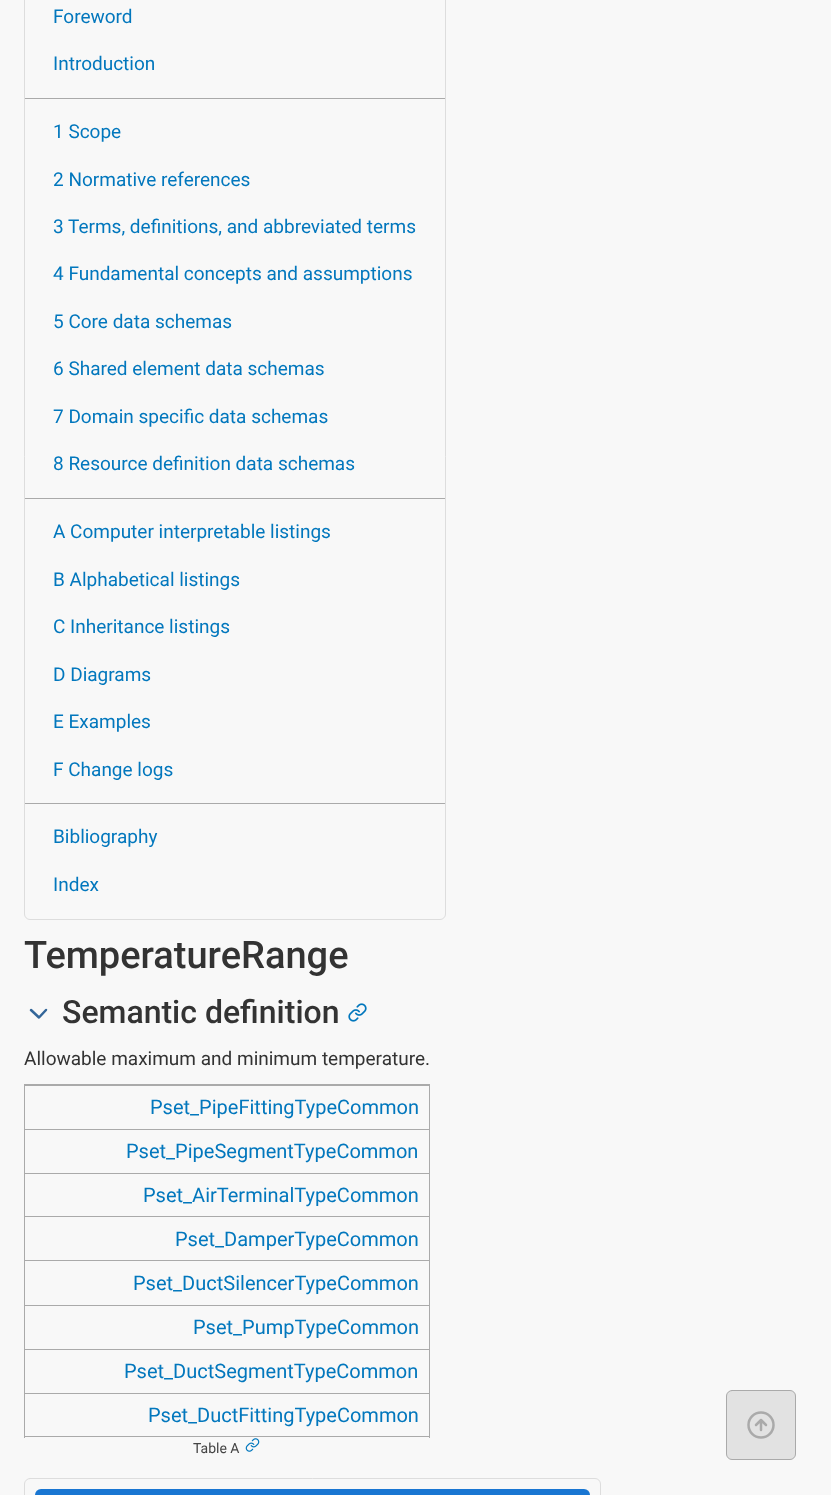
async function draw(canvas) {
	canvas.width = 831;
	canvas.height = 1495;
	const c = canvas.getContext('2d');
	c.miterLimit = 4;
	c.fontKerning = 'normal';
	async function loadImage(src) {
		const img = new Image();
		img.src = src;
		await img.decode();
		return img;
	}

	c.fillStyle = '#f8f8f8';
	c.fillRect(0, 0, 831, 1495);
	c.beginPath();
	c.roundRect(24.5, -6.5, 421, 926, 5.5);
	c.strokeStyle = '#ddd';
	c.stroke();
	c.fillStyle = '#aaa';
	c.fillRect(25, 98, 420, 1);
	c.font = '19px Roboto';
	c.fillStyle = '#0277bd';
	c.fillText('Foreword', 53, 23);
	c.fillText('Introduction', 53, 70);
	c.fillStyle = '#aaa';
	c.fillRect(25, 498, 420, 1);
	c.fillStyle = '#0277bd';
	for (const [text, x, y] of [
		['1 Scope', 53, 138],
		['2 Normative references', 53, 186],
		['3 Terms, definitions, and abbreviated terms', 53, 233],
		['4 Fundamental concepts and assumptions', 53, 280],
		['5 Core data schemas', 53, 328],
		['6 Shared element data schemas', 53, 375],
		['7 Domain specific data schemas', 53, 423],
		['8 Resource definition data schemas', 53, 470],
	]) {
		c.fillText(text, x, y);
	}
	c.fillStyle = '#aaa';
	c.fillRect(25, 803, 420, 1);
	c.fillStyle = '#0277bd';
	for (const [text, x, y] of [
		['A Computer interpretable listings', 53, 538],
		['B Alphabetical listings', 53, 586],
		['C Inheritance listings', 53, 633],
		['D Diagrams', 53, 681],
		['E Examples', 53, 728],
		['F Change logs', 53, 776],
		['Bibliography', 53, 843],
		['Index', 53, 891],
	]) {
		c.fillText(text, x, y);
	}
	c.font = '500 38px Roboto';
	c.fillStyle = '#333';
	c.fillText('TemperatureRange', 24, 968);
	c.beginPath();
	c.moveTo(31, 1010);
	c.lineTo(39, 1017.5);
	c.lineTo(46, 1010);
	c.strokeStyle = '#369';
	c.lineWidth = 2.5;
	c.lineCap = 'round';
	c.lineJoin = 'round';
	c.stroke();
	c.font = '500 32px Roboto';
	c.fillText('Semantic definition', 62, 1023);
	c.drawImage(await loadImage('img1.png'), 348, 1003, 19, 19);
	c.font = '19px Roboto';
	c.fillText('Allowable maximum and minimum temperature.', 24, 1065);
	for (const [x, y, w, h, color] of [
		[24, 1084, 406, 1, '#aaa'],
		[429, 1084, 1, 354, '#aaa'],
		[24, 1436, 406, 1, '#aaa'],
		[24, 1084, 1, 354, '#aaa'],
		[24, 1085, 406, 1, '#aaa'],
	]) {
		c.fillStyle = color;
		c.fillRect(x, y, w, h);
	}
	c.font = '20px Roboto';
	c.fillStyle = '#0277bd';
	c.fillText('Pset_PipeFittingTypeCommon', 150, 1114);
	c.fillStyle = '#aaa';
	c.fillRect(24, 1129, 406, 1);
	c.fillStyle = '#0277bd';
	c.fillText('Pset_PipeSegmentTypeCommon', 126, 1158);
	c.fillStyle = '#aaa';
	c.fillRect(24, 1173, 406, 1);
	c.fillStyle = '#0277bd';
	c.fillText('Pset_AirTerminalTypeCommon', 143, 1202);
	c.fillStyle = '#aaa';
	c.fillRect(24, 1216, 406, 1);
	c.fillStyle = '#0277bd';
	c.fillText('Pset_DamperTypeCommon', 175, 1246);
	c.fillStyle = '#aaa';
	c.fillRect(24, 1260, 406, 1);
	c.fillStyle = '#0277bd';
	c.fillText('Pset_DuctSilencerTypeCommon', 133, 1290);
	c.fillStyle = '#aaa';
	c.fillRect(24, 1305, 406, 1);
	c.fillStyle = '#0277bd';
	c.fillText('Pset_PumpTypeCommon', 193, 1334);
	c.fillStyle = '#aaa';
	c.fillRect(24, 1349, 406, 1);
	c.fillStyle = '#0277bd';
	c.fillText('Pset_DuctSegmentTypeCommon', 124, 1378);
	c.fillStyle = '#aaa';
	c.fillRect(24, 1393, 406, 1);
	c.fillStyle = '#0277bd';
	c.fillText('Pset_DuctFittingTypeCommon', 148, 1422);
	c.font = '14px Roboto';
	c.fillStyle = '#444';
	c.fillText('Table A', 193, 1453);
	c.drawImage(await loadImage('img2.png'), 245, 1438, 15, 14);
	c.beginPath();
	c.roundRect(24.5, 1478.5, 576, 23, 5.5);
	c.strokeStyle = '#ddd';
	c.lineWidth = 1;
	c.lineJoin = 'miter';
	c.stroke();
	c.fillStyle = '#1976d2';
	c.beginPath();
	c.roundRect(35, 1489, 555, 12, 6);
	c.fill();
	c.fillStyle = '#e2e2e2';
	c.beginPath();
	c.roundRect(726.5, 1390.5, 69, 69, 5.5);
	c.fill();
	c.strokeStyle = '#aaa';
	c.stroke();
	c.beginPath();
	c.arc(761, 1425, 12.5, 0, 2 * Math.PI);
	c.lineWidth = 2.5;
	c.stroke();
	c.beginPath();
	c.moveTo(766, 1425);
	c.lineTo(761, 1420);
	c.lineTo(756, 1425);
	c.moveTo(761, 1430);
	c.lineTo(761, 1420);
	c.lineJoin = 'round';
	c.stroke();
}

draw(document.querySelector('canvas'));
